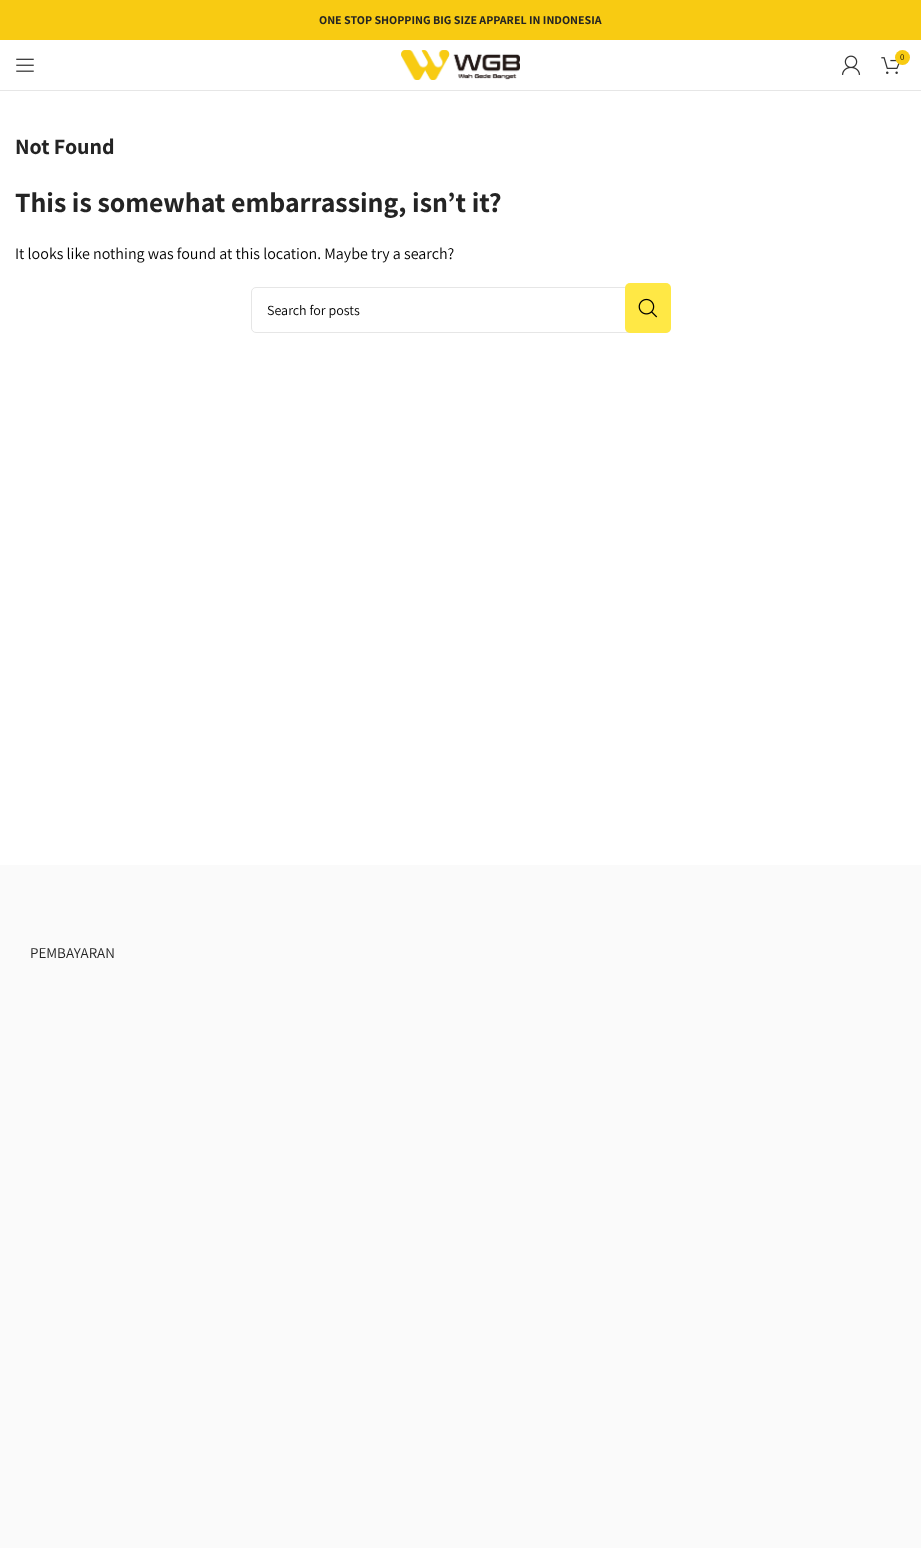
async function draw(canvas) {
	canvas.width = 921;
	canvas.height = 1548;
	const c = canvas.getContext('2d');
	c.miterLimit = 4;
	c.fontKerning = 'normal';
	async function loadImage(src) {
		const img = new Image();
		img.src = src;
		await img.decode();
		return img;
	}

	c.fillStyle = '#fff';
	c.fillRect(0, 0, 921, 1548);
	c.fillStyle = '#f8cb12';
	c.fillRect(0, 0, 921, 40);
	c.font = 'bold 12px Assistant';
	c.fillStyle = '#242424';
	c.fillText('ONE STOP SHOPPING BIG SIZE APPAREL IN INDONESIA', 319, 24);
	c.fillStyle = '#e6e6e6';
	c.fillRect(0, 90, 921, 1);
	c.drawImage(await loadImage('img1.png'), 16, 58, 18, 14);
	c.drawImage(await loadImage('img2.png'), 401, 50, 119, 30);
	c.drawImage(await loadImage('img3.png'), 841, 55, 20, 20);
	c.drawImage(await loadImage('img4.png'), 881, 57, 19, 17);
	c.fillStyle = '#f8cb12';
	c.beginPath();
	c.arc(902.5, 57.5, 7.5, 0, 2 * Math.PI);
	c.fill();
	c.font = '9px Assistant';
	c.fillStyle = '#000';
	c.fillText('0', 900, 60);
	c.font = 'bold 22px Assistant';
	c.fillStyle = '#242424';
	c.fillText('Not Found', 15, 154);
	c.font = 'bold 28px Assistant';
	c.fillText('This is somewhat embarrassing, isn’t it?', 15, 212);
	c.font = '16px Assistant';
	c.fillStyle = '#000';
	c.fillText('It looks like nothing was found at this location. Maybe try a search?', 15, 259);
	c.beginPath();
	c.roundRect(251.5, 287.5, 419, 45, 4.5);
	c.strokeStyle = '#e6e6e6';
	c.stroke();
	c.font = '14px Assistant';
	c.fillText('Search for posts', 267, 315);
	c.fillStyle = '#ffe845';
	c.beginPath();
	c.roundRect(625, 283, 46, 50, 5);
	c.fill();
	c.drawImage(await loadImage('img5.png'), 638, 298, 20, 20);
	c.fillStyle = '#fafafa';
	c.fillRect(0, 865, 921, 683);
	c.font = '15px Assistant';
	c.fillStyle = '#242424';
	c.fillText('PEMBAYARAN', 30, 958);
}

draw(document.querySelector('canvas'));
